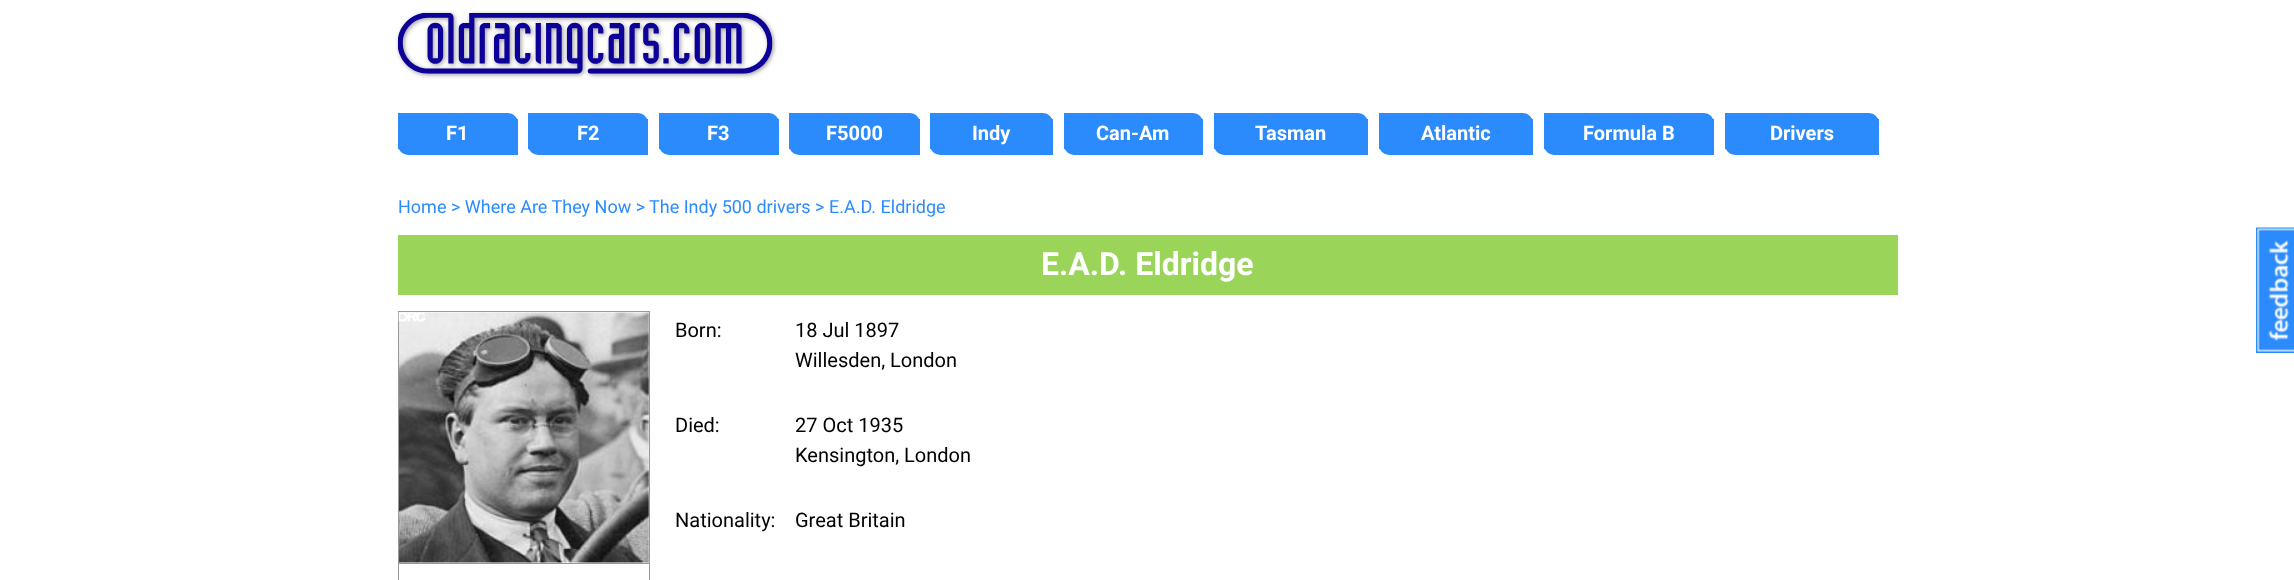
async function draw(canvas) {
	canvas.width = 2294;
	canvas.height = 580;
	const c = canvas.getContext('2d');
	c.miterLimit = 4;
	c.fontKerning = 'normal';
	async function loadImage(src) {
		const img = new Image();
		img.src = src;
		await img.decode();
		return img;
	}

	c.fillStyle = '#fff';
	c.fillRect(0, 0, 2294, 580);
	c.drawImage(await loadImage('img1.png'), 395, 10, 382, 69);
	c.fillStyle = '#2c8bfc';
	c.beginPath();
	c.roundRect(398, 113, 120, 42, [0, 10, 0, 10]);
	c.fill();
	c.fillRect(398, 119, 120, 30);
	c.font = 'bold 20px Roboto';
	c.fillStyle = '#fff';
	c.fillText('F1', 446, 140);
	c.fillStyle = '#2c8bfc';
	c.beginPath();
	c.roundRect(528, 113, 120, 42, [0, 10, 0, 10]);
	c.fill();
	c.fillRect(528, 119, 120, 30);
	c.fillStyle = '#fff';
	c.fillText('F2', 577, 140);
	c.fillStyle = '#2c8bfc';
	c.beginPath();
	c.roundRect(659, 113, 120, 42, [0, 10, 0, 10]);
	c.fill();
	c.fillRect(659, 119, 120, 30);
	c.fillStyle = '#fff';
	c.fillText('F3', 707, 140);
	c.fillStyle = '#2c8bfc';
	c.beginPath();
	c.roundRect(789, 113, 131, 42, [0, 10, 0, 10]);
	c.fill();
	c.fillRect(789, 119, 131, 30);
	c.fillStyle = '#fff';
	c.fillText('F5000', 826, 140);
	c.fillStyle = '#2c8bfc';
	c.beginPath();
	c.roundRect(930, 113, 123, 42, [0, 10, 0, 10]);
	c.fill();
	c.fillRect(930, 119, 123, 30);
	c.fillStyle = '#fff';
	c.fillText('Indy', 972, 140);
	c.fillStyle = '#2c8bfc';
	c.beginPath();
	c.roundRect(1064, 113, 139, 42, [0, 10, 0, 10]);
	c.fill();
	c.fillRect(1064, 119, 139, 30);
	c.fillStyle = '#fff';
	c.fillText('Can-Am', 1096, 140);
	c.fillStyle = '#2c8bfc';
	c.beginPath();
	c.roundRect(1214, 113, 154, 42, [0, 10, 0, 10]);
	c.fill();
	c.fillRect(1214, 119, 154, 30);
	c.fillStyle = '#fff';
	c.fillText('Tasman', 1255, 140);
	c.fillStyle = '#2c8bfc';
	c.beginPath();
	c.roundRect(1379, 113, 154, 42, [0, 10, 0, 10]);
	c.fill();
	c.fillRect(1379, 119, 154, 30);
	c.fillStyle = '#fff';
	c.fillText('Atlantic', 1421, 140);
	c.fillStyle = '#2c8bfc';
	c.beginPath();
	c.roundRect(1544, 113, 170, 42, [0, 10, 0, 10]);
	c.fill();
	c.fillRect(1544, 119, 170, 30);
	c.fillStyle = '#fff';
	c.fillText('Formula B', 1583, 140);
	c.fillStyle = '#2c8bfc';
	c.beginPath();
	c.roundRect(1725, 113, 154, 42, [0, 10, 0, 10]);
	c.fill();
	c.fillRect(1725, 119, 154, 30);
	c.fillStyle = '#fff';
	c.fillText('Drivers', 1770, 140);
	c.font = '18px Roboto';
	c.fillStyle = '#2c8bfc';
	c.fillText('Home > Where Are They Now >', 398, 213);
	c.fillText('The Indy 500 drivers > E.A.D. Eldridge', 649, 213);
	c.fillStyle = '#9ad459';
	c.fillRect(398, 235, 1500, 60);
	c.font = 'bold 32px Roboto';
	c.fillStyle = '#fff';
	c.fillText('E.A.D. Eldridge', 1041, 275);
	c.drawImage(await loadImage('img2.png'), 399, 312, 250, 251);
	c.strokeStyle = '#999';
	c.strokeRect(398.5, 311.5, 251, 252);
	c.drawImage(await loadImage('img3.png'), 398, 312, 27, 10);
	c.fillStyle = '#999';
	c.fillRect(649, 564, 1, 16);
	c.fillRect(398, 564, 1, 16);
	c.font = '20px Roboto';
	c.fillStyle = '#000';
	for (const [text, x, y] of [
		['Born:', 675, 337],
		['18 Jul 1897', 795, 337],
		['Willesden, London', 795, 367],
		['Died:', 675, 432],
		['27 Oct 1935', 795, 432],
		['Kensington, London', 795, 462],
		['Nationality:', 675, 527],
		['Great Britain', 795, 527],
	]) {
		c.fillText(text, x, y);
	}
	c.fillStyle = '#2c8bfc';
	c.fillRect(2256, 228, 38, 125);
	c.drawImage(await loadImage('img4.png'), 2256, 227, 38, 125);
}

draw(document.querySelector('canvas'));
